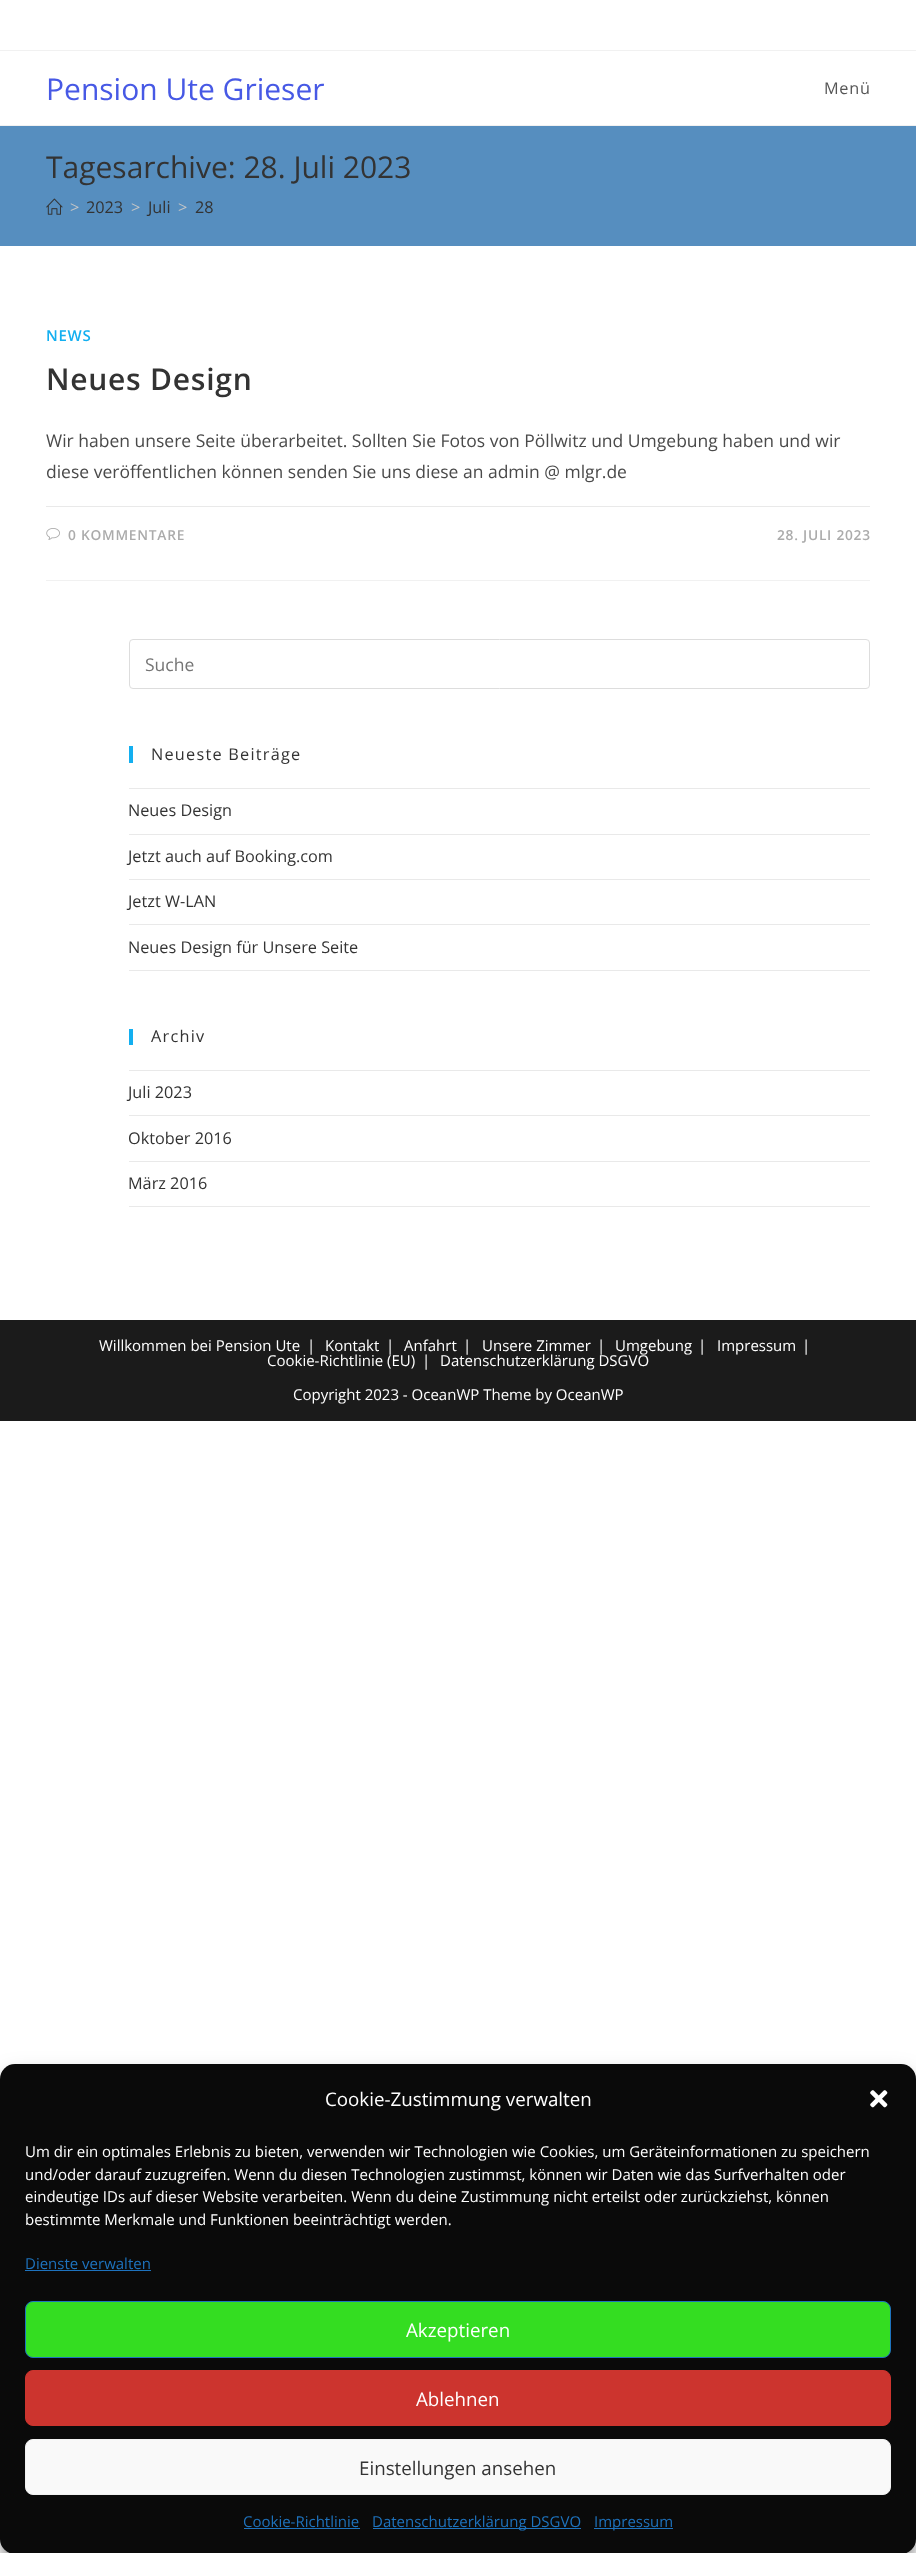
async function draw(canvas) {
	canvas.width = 916;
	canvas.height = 2553;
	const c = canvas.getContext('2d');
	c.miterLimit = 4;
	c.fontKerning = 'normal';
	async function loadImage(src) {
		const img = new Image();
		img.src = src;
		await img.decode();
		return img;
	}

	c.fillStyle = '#fff';
	c.fillRect(0, 0, 916, 2553);
	c.fillStyle = '#f1f1f1';
	c.fillRect(0, 50, 916, 1);
	c.fillRect(0, 125, 916, 1);
	c.font = '30px Open Sans';
	c.fillStyle = '#4759e5';
	c.fillText('Pension Ute Grieser', 46, 100);
	c.letterSpacing = '0.75px';
	c.font = '16.25px Open Sans';
	c.fillStyle = '#555';
	c.fillText('Menü', 824, 94);
	c.fillStyle = '#568ebf';
	c.fillRect(0, 126, 916, 120);
	c.letterSpacing = '0px';
	c.font = '30px Open Sans';
	c.fillStyle = '#333';
	c.fillText('Tagesarchive: 28. Juli 2023', 46, 178);
	c.drawImage(await loadImage('img1.png'), 46, 198, 17, 17);
	c.font = '16.25px Open Sans';
	c.fillStyle = '#c6c6c6';
	c.fillText('>', 70, 213);
	c.fillStyle = '#333';
	c.fillText('2023', 86, 213);
	c.fillStyle = '#c6c6c6';
	c.fillText('>', 131, 213);
	c.fillStyle = '#333';
	c.fillText('Juli', 148, 213);
	c.fillStyle = '#c6c6c6';
	c.fillText('>', 178, 213);
	c.fillStyle = '#333';
	c.fillText('28', 195, 213);
	c.fillStyle = '#f1f1f1';
	c.fillRect(46, 580, 824, 1);
	c.letterSpacing = '0.75px';
	c.font = '600 15px Open Sans';
	c.fillStyle = '#13aff0';
	c.fillText('NEWS', 46, 341);
	c.font = '600 30px Open Sans';
	c.fillStyle = '#333';
	c.fillText('Neues Design', 46, 390);
	c.letterSpacing = '0px';
	c.font = '17.5px Open Sans';
	c.fillStyle = '#4a4a4a';
	c.fillText('Wir haben unsere Seite überarbeitet. Sollten Sie Fotos von Pöllwitz und Umgebung haben und wir', 46, 447);
	c.fillText('diese veröffentlichen können senden Sie uns diese an admin @ mlgr.de', 46, 478);
	c.fillStyle = '#e9e9e9';
	c.fillRect(46, 506, 824, 1);
	c.drawImage(await loadImage('img2.png'), 46, 528, 14, 12);
	c.letterSpacing = '0.75px';
	c.font = '600 13.75px Open Sans';
	c.fillStyle = '#ababab';
	c.fillText('0 KOMMENTARE', 68, 540);
	c.fillText('28. JULI 2023', 777, 540);
	c.beginPath();
	c.roundRect(129.5, 639.5, 740, 49, 3.5);
	c.strokeStyle = '#ddd';
	c.stroke();
	c.letterSpacing = '0px';
	c.font = '17.5px Open Sans';
	c.fillStyle = '#757575';
	c.fillText('Suche', 145, 671);
	c.fillStyle = '#13aff0';
	c.fillRect(129, 746, 4, 17);
	c.letterSpacing = '1.25px';
	c.font = '16.25px Open Sans';
	c.fillStyle = '#333';
	c.fillText('Neueste Beiträge', 151, 760);
	c.fillStyle = '#e9e9e9';
	c.fillRect(129, 788, 741, 1);
	c.fillRect(129, 834, 741, 1);
	c.letterSpacing = '0px';
	c.fillStyle = '#333';
	c.fillText('Neues Design', 128, 816);
	c.fillStyle = '#e9e9e9';
	c.fillRect(129, 879, 741, 1);
	c.fillStyle = '#333';
	c.fillText('Jetzt auch auf Booking.com', 128, 862);
	c.fillStyle = '#e9e9e9';
	c.fillRect(129, 924, 741, 1);
	c.fillStyle = '#333';
	c.fillText('Jetzt W-LAN', 128, 907);
	c.fillStyle = '#e9e9e9';
	c.fillRect(129, 970, 741, 1);
	c.fillStyle = '#333';
	c.fillText('Neues Design für Unsere Seite', 128, 953);
	c.fillStyle = '#13aff0';
	c.fillRect(129, 1029, 4, 16);
	c.letterSpacing = '1.25px';
	c.fillStyle = '#333';
	c.fillText('Archiv', 151, 1042);
	c.fillStyle = '#e9e9e9';
	c.fillRect(129, 1070, 741, 1);
	c.fillRect(129, 1115, 741, 1);
	c.letterSpacing = '0px';
	c.fillStyle = '#333';
	c.fillText('Juli 2023', 128, 1098);
	c.fillStyle = '#e9e9e9';
	c.fillRect(129, 1161, 741, 1);
	c.fillStyle = '#333';
	c.fillText('Oktober 2016', 128, 1144);
	c.fillStyle = '#e9e9e9';
	c.fillRect(129, 1206, 741, 1);
	c.fillStyle = '#333';
	c.fillText('März 2016', 128, 1189);
	c.fillStyle = '#1b1b1b';
	c.fillRect(0, 1320, 916, 101);
	c.font = '15px Open Sans';
	c.fillStyle = '#fff';
	for (const [text, x, y] of [
		['Willkommen bei Pension Ute', 99, 1351],
		['|', 307, 1351],
		['Kontakt', 325, 1351],
		['|', 386, 1351],
		['Anfahrt', 404, 1351],
		['|', 463, 1351],
		['Unsere Zimmer', 482, 1351],
		['|', 597, 1351],
		['Umgebung', 615, 1351],
		['|', 698, 1351],
		['Impressum', 717, 1351],
		['|', 802, 1351],
		['Cookie-Richtlinie (EU)', 267, 1366],
		['|', 422, 1366],
		['Datenschutzerklärung DSGVO', 440, 1366],
		['Copyright 2023 - OceanWP Theme by OceanWP', 293, 1400],
	]) {
		c.fillText(text, x, y);
	}
	c.fillStyle = '#0000003b';
	c.filter = 'blur(4px)';
	c.beginPath();
	c.roundRect(0, 2071, 916, 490, 15);
	c.fill();
	c.filter = 'none';
	c.fillStyle = '#00000030';
	c.filter = 'blur(12.5px)';
	c.beginPath();
	c.roundRect(0, 2076, 916, 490, 15);
	c.fill();
	c.filter = 'none';
	c.fillStyle = '#0a0a0a';
	c.beginPath();
	c.roundRect(0, 2064, 916, 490, 15);
	c.fill();
	c.font = '18.75px Open Sans';
	c.fillStyle = '#fff';
	c.fillText('Cookie-Zustimmung verwalten', 325, 2106);
	c.drawImage(await loadImage('img3.png'), 870, 2090, 18, 18);
	c.font = '15px Open Sans';
	for (const [text, x, y] of [
		['Um dir ein optimales Erlebnis zu bieten, verwenden wir Technologien wie Cookies, um Geräteinformationen zu speichern', 25, 2157],
		['und/oder darauf zuzugreifen. Wenn du diesen Technologien zustimmst, können wir Daten wie das Surfverhalten oder', 25, 2180],
		['eindeutige IDs auf dieser Website verarbeiten. Wenn du deine Zustimmung nicht erteilst oder zurückziehst, können', 25, 2202],
		['bestimmte Merkmale und Funktionen beeinträchtigt werden.', 25, 2225],
	]) {
		c.fillText(text, x, y);
	}
	c.fillStyle = '#1e73be';
	c.fillText('Dienste verwalten', 25, 2269);
	c.fillRect(25, 2270, 126, 1);
	c.fillStyle = '#34dd21';
	c.beginPath();
	c.roundRect(25.5, 2301.5, 865, 56, 7.5);
	c.fill();
	c.strokeStyle = '#1e73be';
	c.stroke();
	c.font = '18.75px Open Sans';
	c.fillStyle = '#fff';
	c.fillText('Akzeptieren', 406, 2337);
	c.fillStyle = '#cc342e';
	c.beginPath();
	c.roundRect(25.5, 2370.5, 865, 55, 7.5);
	c.fill();
	c.strokeStyle = '#cc342e';
	c.stroke();
	c.fillStyle = '#fff';
	c.fillText('Ablehnen', 416, 2406);
	c.fillStyle = '#f9f9f9';
	c.beginPath();
	c.roundRect(25.5, 2439.5, 865, 55, 7.5);
	c.fill();
	c.strokeStyle = '#f2f2f2';
	c.stroke();
	c.fillStyle = '#333';
	c.fillText('Einstellungen ansehen', 359, 2475);
	c.font = '15px Open Sans';
	c.fillStyle = '#1e73be';
	c.fillText('Cookie-Richtlinie', 243, 2527);
	c.fillRect(244, 2528, 116, 1);
	c.fillRect(373, 2528, 208, 1);
	c.fillText('Datenschutzerklärung DSGVO', 372, 2527);
	c.fillRect(594, 2528, 79, 1);
	c.fillText('Impressum', 594, 2527);
}

draw(document.querySelector('canvas'));
